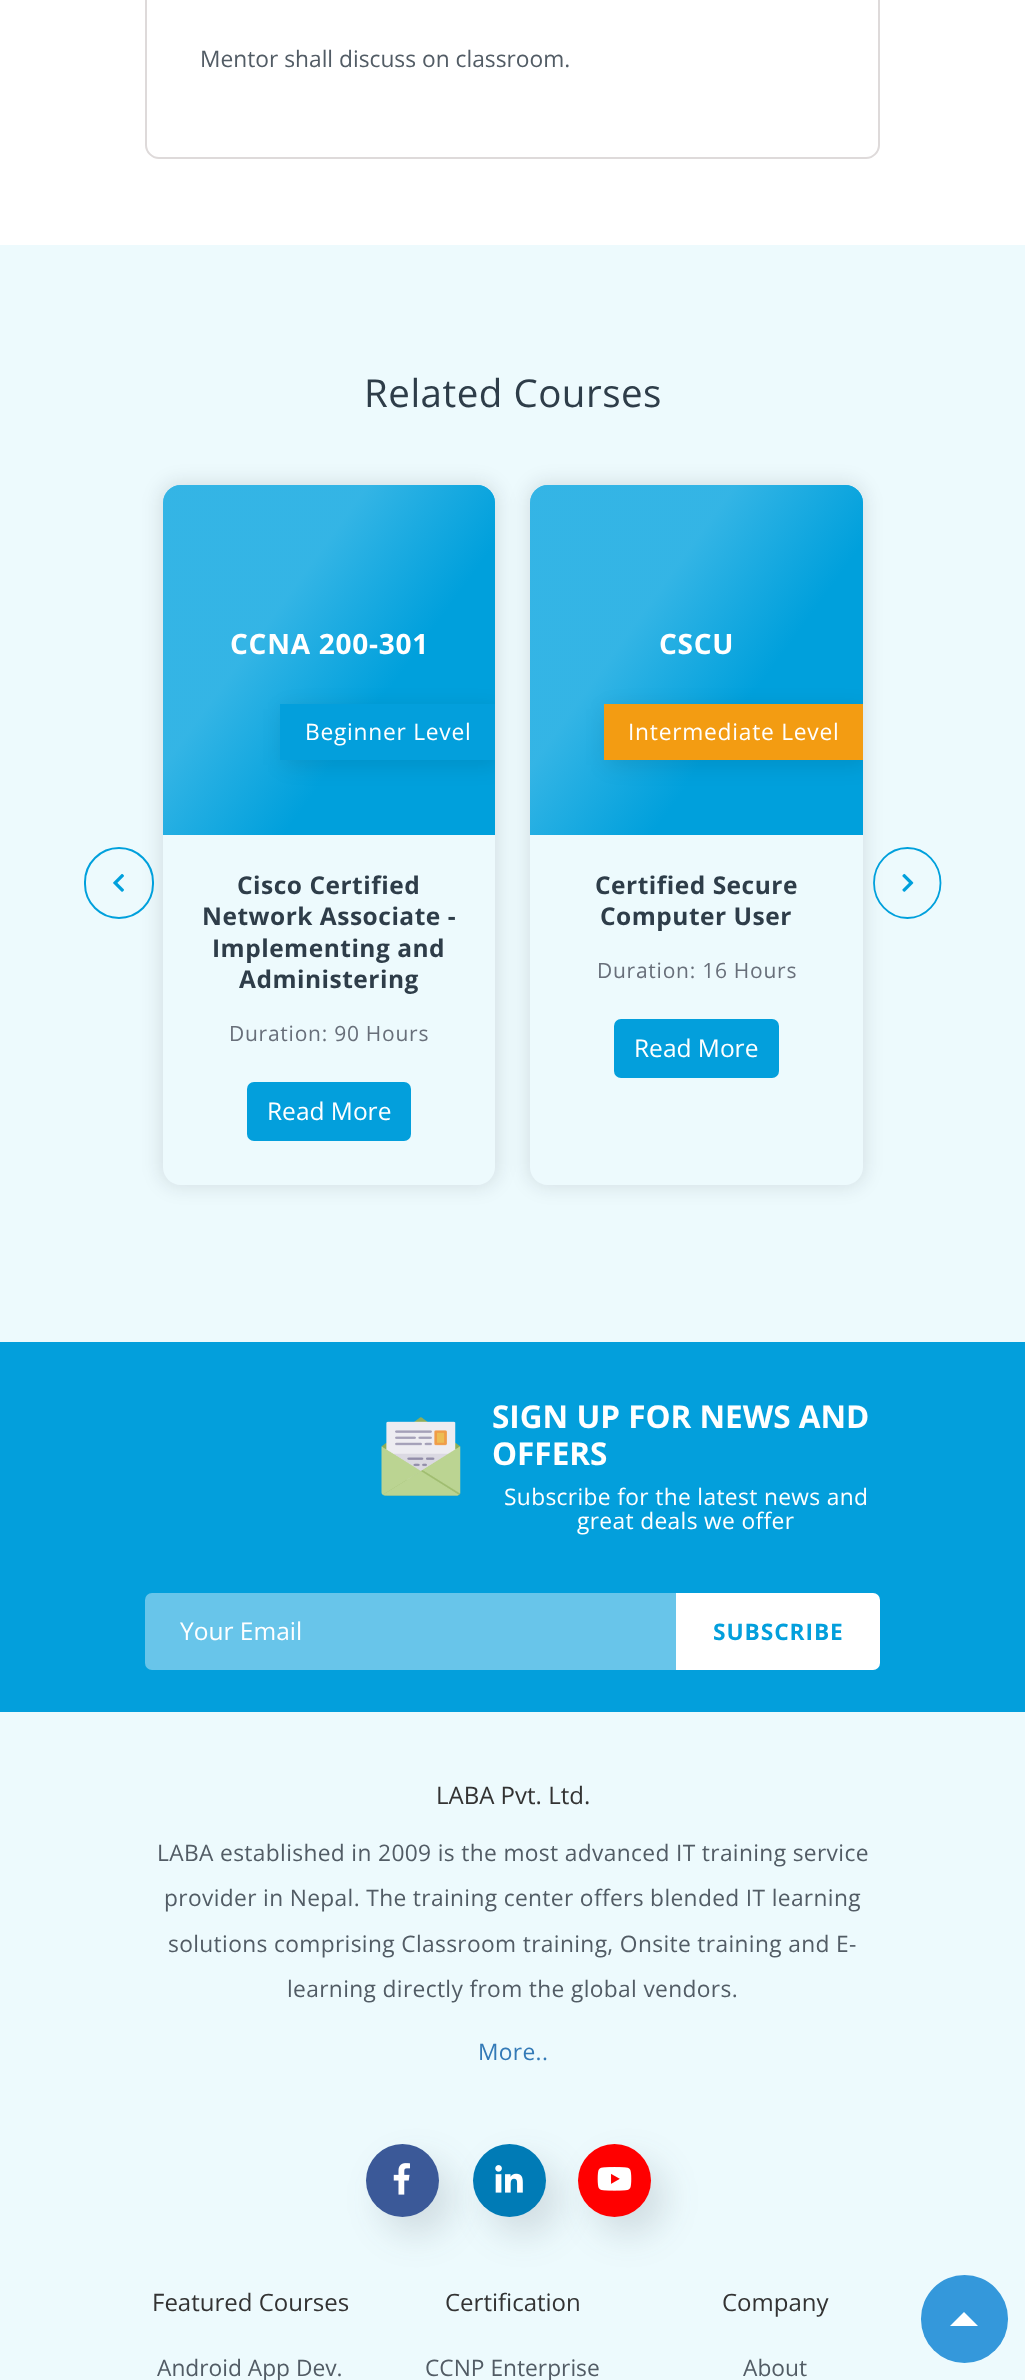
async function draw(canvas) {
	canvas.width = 1025;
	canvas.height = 2380;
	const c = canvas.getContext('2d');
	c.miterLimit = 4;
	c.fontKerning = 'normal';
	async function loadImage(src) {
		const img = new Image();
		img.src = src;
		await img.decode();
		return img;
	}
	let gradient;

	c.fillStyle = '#fff';
	c.fillRect(0, 0, 1025, 2380);
	c.beginPath();
	c.moveTo(146, -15);
	c.lineTo(879, -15);
	c.lineTo(879, 145);
	c.bezierCurveTo(879, 152, 873, 158, 866, 158);
	c.lineTo(159, 158);
	c.bezierCurveTo(152, 158, 146, 152, 146, 145);
	c.closePath();
	c.strokeStyle = '#dedada';
	c.lineWidth = 2;
	c.stroke();
	c.font = '22.75px Open Sans';
	c.fillStyle = '#525c65';
	c.fillText('Mentor shall discuss on classroom.', 200, 67);
	c.fillStyle = '#edfafd';
	c.fillRect(0, 245, 1025, 1097);
	c.letterSpacing = '0.5px';
	c.font = '38.5px Open Sans';
	c.fillStyle = '#2e3d49';
	c.fillText('Related Courses', 364, 407);
	c.save();
	c.beginPath();
	c.moveTo(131, 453);
	c.lineTo(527, 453);
	c.lineTo(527, 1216);
	c.lineTo(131, 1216);
	c.closePath();
	c.moveTo(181, 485);
	c.lineTo(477, 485);
	c.bezierCurveTo(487, 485, 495, 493, 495, 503);
	c.lineTo(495, 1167);
	c.bezierCurveTo(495, 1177, 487, 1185, 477, 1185);
	c.lineTo(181, 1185);
	c.bezierCurveTo(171, 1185, 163, 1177, 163, 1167);
	c.lineTo(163, 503);
	c.bezierCurveTo(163, 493, 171, 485, 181, 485);
	c.closePath();
	c.clip('evenodd');
	c.fillStyle = '#14171c1a';
	c.filter = 'blur(9px)';
	c.beginPath();
	c.roundRect(159, 481, 340, 707, 21);
	c.fill();
	c.filter = 'none';
	c.restore();
	gradient = c.createLinearGradient(137, 520, 521, 799);
	gradient.addColorStop(0.35, '#45bbe7');
	gradient.addColorStop(0.64, '#00a0dc');
	c.fillStyle = gradient;
	c.beginPath();
	c.roundRect(163, 485, 332, 350, [18, 18, 0, 0]);
	c.fill();
	gradient = c.createLinearGradient(137, 520, 521, 799);
	gradient.addColorStop(0.35, '#32b4e5e6');
	gradient.addColorStop(0.64, '#00a0dc');
	c.fillStyle = gradient;
	c.beginPath();
	c.roundRect(163, 485, 332, 350, [18, 18, 0, 0]);
	c.fill();
	c.letterSpacing = '0.75px';
	c.font = 'bold 28px Open Sans';
	c.fillStyle = '#fff';
	c.fillText('CCNA 200-301', 230, 654);
	c.save();
	c.beginPath();
	c.roundRect(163, 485, 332, 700, 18);
	c.clip();
	c.fillStyle = '#0000001a';
	c.filter = 'blur(10.5px)';
	c.beginPath();
	c.rect(284, 709, 215, 56);
	c.fill();
	c.filter = 'none';
	c.restore();
	c.fillStyle = '#039fdc';
	c.fillRect(280, 704, 215, 56);
	c.font = '22.75px Open Sans';
	c.fillStyle = '#fff';
	c.fillText('Beginner Level', 305, 740);
	c.letterSpacing = '0.5px';
	c.font = 'bold 24.5px Open Sans';
	c.fillStyle = '#2e3d49';
	for (const [text, x, y] of [
		['Cisco Certified', 237, 894],
		['Network Associate -', 202, 925],
		['Implementing and', 212, 957],
		['Administering', 239, 988],
	]) {
		c.fillText(text, x, y);
	}
	c.letterSpacing = '0.75px';
	c.font = '21px Open Sans';
	c.fillStyle = '#686f7a';
	c.fillText('Duration: 90 Hours', 229, 1041);
	c.fillStyle = '#039fdc';
	c.beginPath();
	c.roundRect(247, 1082, 164, 59, 7);
	c.fill();
	c.letterSpacing = '0px';
	c.font = '24.5px Open Sans';
	c.fillStyle = '#fff';
	c.fillText('Read More', 267, 1120);
	c.save();
	c.beginPath();
	c.moveTo(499, 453);
	c.lineTo(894, 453);
	c.lineTo(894, 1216);
	c.lineTo(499, 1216);
	c.closePath();
	c.moveTo(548, 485);
	c.lineTo(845, 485);
	c.bezierCurveTo(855, 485, 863, 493, 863, 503);
	c.lineTo(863, 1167);
	c.bezierCurveTo(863, 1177, 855, 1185, 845, 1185);
	c.lineTo(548, 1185);
	c.bezierCurveTo(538, 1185, 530, 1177, 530, 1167);
	c.lineTo(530, 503);
	c.bezierCurveTo(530, 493, 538, 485, 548, 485);
	c.closePath();
	c.clip('evenodd');
	c.fillStyle = '#14171c1a';
	c.filter = 'blur(9px)';
	c.beginPath();
	c.roundRect(527, 481, 339, 707, 21);
	c.fill();
	c.filter = 'none';
	c.restore();
	gradient = c.createLinearGradient(504, 520, 889, 799);
	gradient.addColorStop(0.35, '#32b4e5e6');
	gradient.addColorStop(0.64, '#00a0dc');
	c.fillStyle = gradient;
	c.beginPath();
	c.roundRect(530, 485, 333, 350, [18, 18, 0, 0]);
	c.fill();
	c.beginPath();
	c.roundRect(530, 485, 333, 350, [18, 18, 0, 0]);
	c.fill();
	c.letterSpacing = '0.75px';
	c.font = 'bold 28px Open Sans';
	c.fillStyle = '#fff';
	c.fillText('CSCU', 659, 654);
	c.save();
	c.beginPath();
	c.roundRect(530, 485, 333, 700, 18);
	c.clip();
	c.fillStyle = '#0000001a';
	c.filter = 'blur(10.5px)';
	c.beginPath();
	c.rect(607, 709, 259, 56);
	c.fill();
	c.filter = 'none';
	c.restore();
	c.fillStyle = '#f39c12';
	c.fillRect(604, 704, 259, 56);
	c.font = '22.75px Open Sans';
	c.fillStyle = '#fff';
	c.fillText('Intermediate Level', 628, 740);
	c.letterSpacing = '0.5px';
	c.font = 'bold 24.5px Open Sans';
	c.fillStyle = '#2e3d49';
	c.fillText('Certified Secure', 595, 894);
	c.fillText('Computer User', 600, 925);
	c.letterSpacing = '0.75px';
	c.font = '21px Open Sans';
	c.fillStyle = '#686f7a';
	c.fillText('Duration: 16 Hours', 597, 978);
	c.fillStyle = '#039fdc';
	c.beginPath();
	c.roundRect(614, 1019, 165, 59, 7);
	c.fill();
	c.letterSpacing = '0px';
	c.font = '24.5px Open Sans';
	c.fillStyle = '#fff';
	c.fillText('Read More', 634, 1057);
	c.beginPath();
	c.roundRect(85, 848, 68, 70, 34);
	c.strokeStyle = '#00a0dc';
	c.stroke();
	c.drawImage(await loadImage('img1.png'), 113, 874, 11, 18);
	c.beginPath();
	c.moveTo(907.5, 848);
	c.bezierCurveTo(925.5, 848, 940.5, 863.5, 940.5, 883);
	c.bezierCurveTo(940.5, 902, 925.5, 918, 907.5, 918);
	c.bezierCurveTo(889, 918, 874, 902, 874, 883);
	c.bezierCurveTo(874, 863.5, 889, 848, 907.5, 848);
	c.closePath();
	c.lineWidth = 1.8;
	c.stroke();
	c.drawImage(await loadImage('img2.png'), 902, 873, 12, 19);
	c.fillStyle = '#039fdc';
	c.fillRect(0, 1342, 1025, 370);
	c.drawImage(await loadImage('img3.png'), 381, 1417, 80, 79);
	c.font = 'bold 31.5px Open Sans';
	c.fillStyle = '#fff';
	c.fillText('SIGN UP FOR NEWS AND', 492, 1428);
	c.fillText('OFFERS', 492, 1465);
	c.letterSpacing = '0.35px';
	c.font = '22.75px Open Sans';
	c.fillText('Subscribe for the latest news and', 504, 1505);
	c.fillText('great deals we offer', 577, 1529);
	c.fillStyle = '#68c5ea';
	c.beginPath();
	c.roundRect(145, 1593, 531, 77, [7, 0, 0, 7]);
	c.fill();
	c.letterSpacing = '0px';
	c.font = '24.5px Open Sans';
	c.fillStyle = '#fff';
	c.fillText('Your Email', 180, 1640);
	c.beginPath();
	c.roundRect(676, 1593, 204, 77, [0, 7, 7, 0]);
	c.fill();
	c.letterSpacing = '0.9px';
	c.font = 'bold 22.75px Open Sans';
	c.fillStyle = '#039fdc';
	c.fillText('SUBSCRIBE', 713, 1640);
	c.fillStyle = '#edfafd';
	c.fillRect(0, 1712, 1025, 668);
	c.letterSpacing = '0px';
	c.font = '24px Open Sans';
	c.fillStyle = '#333';
	c.fillText('LABA Pvt. Ltd.', 436, 1804);
	c.letterSpacing = '0.35px';
	c.font = '22.75px Open Sans';
	c.fillStyle = '#525c65';
	for (const [text, x, y] of [
		['LABA established in 2009 is the most advanced IT training service', 157, 1861],
		['provider in Nepal. The training center offers blended IT learning', 164, 1906],
		['solutions comprising Classroom training, Onsite training and E-', 168, 1952],
		['learning directly from the global vendors.', 287, 1997],
	]) {
		c.fillText(text, x, y);
	}
	c.fillStyle = '#337ab7';
	c.fillText('More..', 478, 2060);
	c.fillStyle = '#2e3d4926';
	c.filter = 'blur(17.5px)';
	c.beginPath();
	c.roundRect(380, 2161, 73, 74, 36.5);
	c.fill();
	c.filter = 'none';
	c.fillStyle = '#3b5998';
	c.beginPath();
	c.arc(402.5, 2180.5, 36.5, 0, 2 * Math.PI);
	c.fill();
	c.drawImage(await loadImage('img4.png'), 393, 2163, 17, 32);
	c.fillStyle = '#2e3d4926';
	c.filter = 'blur(17.5px)';
	c.beginPath();
	c.roundRect(487, 2161, 73, 74, 36.5);
	c.fill();
	c.filter = 'none';
	c.fillStyle = '#007bb6';
	c.beginPath();
	c.arc(509.5, 2180.5, 36.5, 0, 2 * Math.PI);
	c.fill();
	c.drawImage(await loadImage('img5.png'), 495, 2165, 28, 28);
	c.fillStyle = '#2e3d4926';
	c.filter = 'blur(17.5px)';
	c.beginPath();
	c.roundRect(592, 2161, 73, 74, 36.5);
	c.fill();
	c.filter = 'none';
	c.fillStyle = '#f00';
	c.beginPath();
	c.arc(614.5, 2180.5, 36.5, 0, 2 * Math.PI);
	c.fill();
	c.drawImage(await loadImage('img6.png'), 597, 2167, 35, 24);
	c.letterSpacing = '0px';
	c.font = '24px Open Sans';
	c.fillStyle = '#333';
	c.fillText('Featured Courses', 152, 2311);
	c.font = '22.75px Open Sans';
	c.fillStyle = '#525c65';
	c.fillText('Android App Dev.', 157, 2376);
	c.font = '24px Open Sans';
	c.fillStyle = '#333';
	c.fillText('Certification', 445, 2311);
	c.font = '22.75px Open Sans';
	c.fillStyle = '#525c65';
	c.fillText('CCNP Enterprise', 425, 2376);
	c.font = '24px Open Sans';
	c.fillStyle = '#333';
	c.fillText('Company', 722, 2311);
	c.font = '22.75px Open Sans';
	c.fillStyle = '#525c65';
	c.fillText('About', 743, 2376);
	c.fillStyle = '#3498db';
	c.beginPath();
	c.roundRect(921, 2275, 87, 88, 43.5);
	c.fill();
	c.fillStyle = '#fff';
	c.beginPath();
	c.moveTo(978, 2326);
	c.lineTo(950, 2326);
	c.lineTo(964, 2312);
	c.closePath();
	c.fill();
}

draw(document.querySelector('canvas'));
